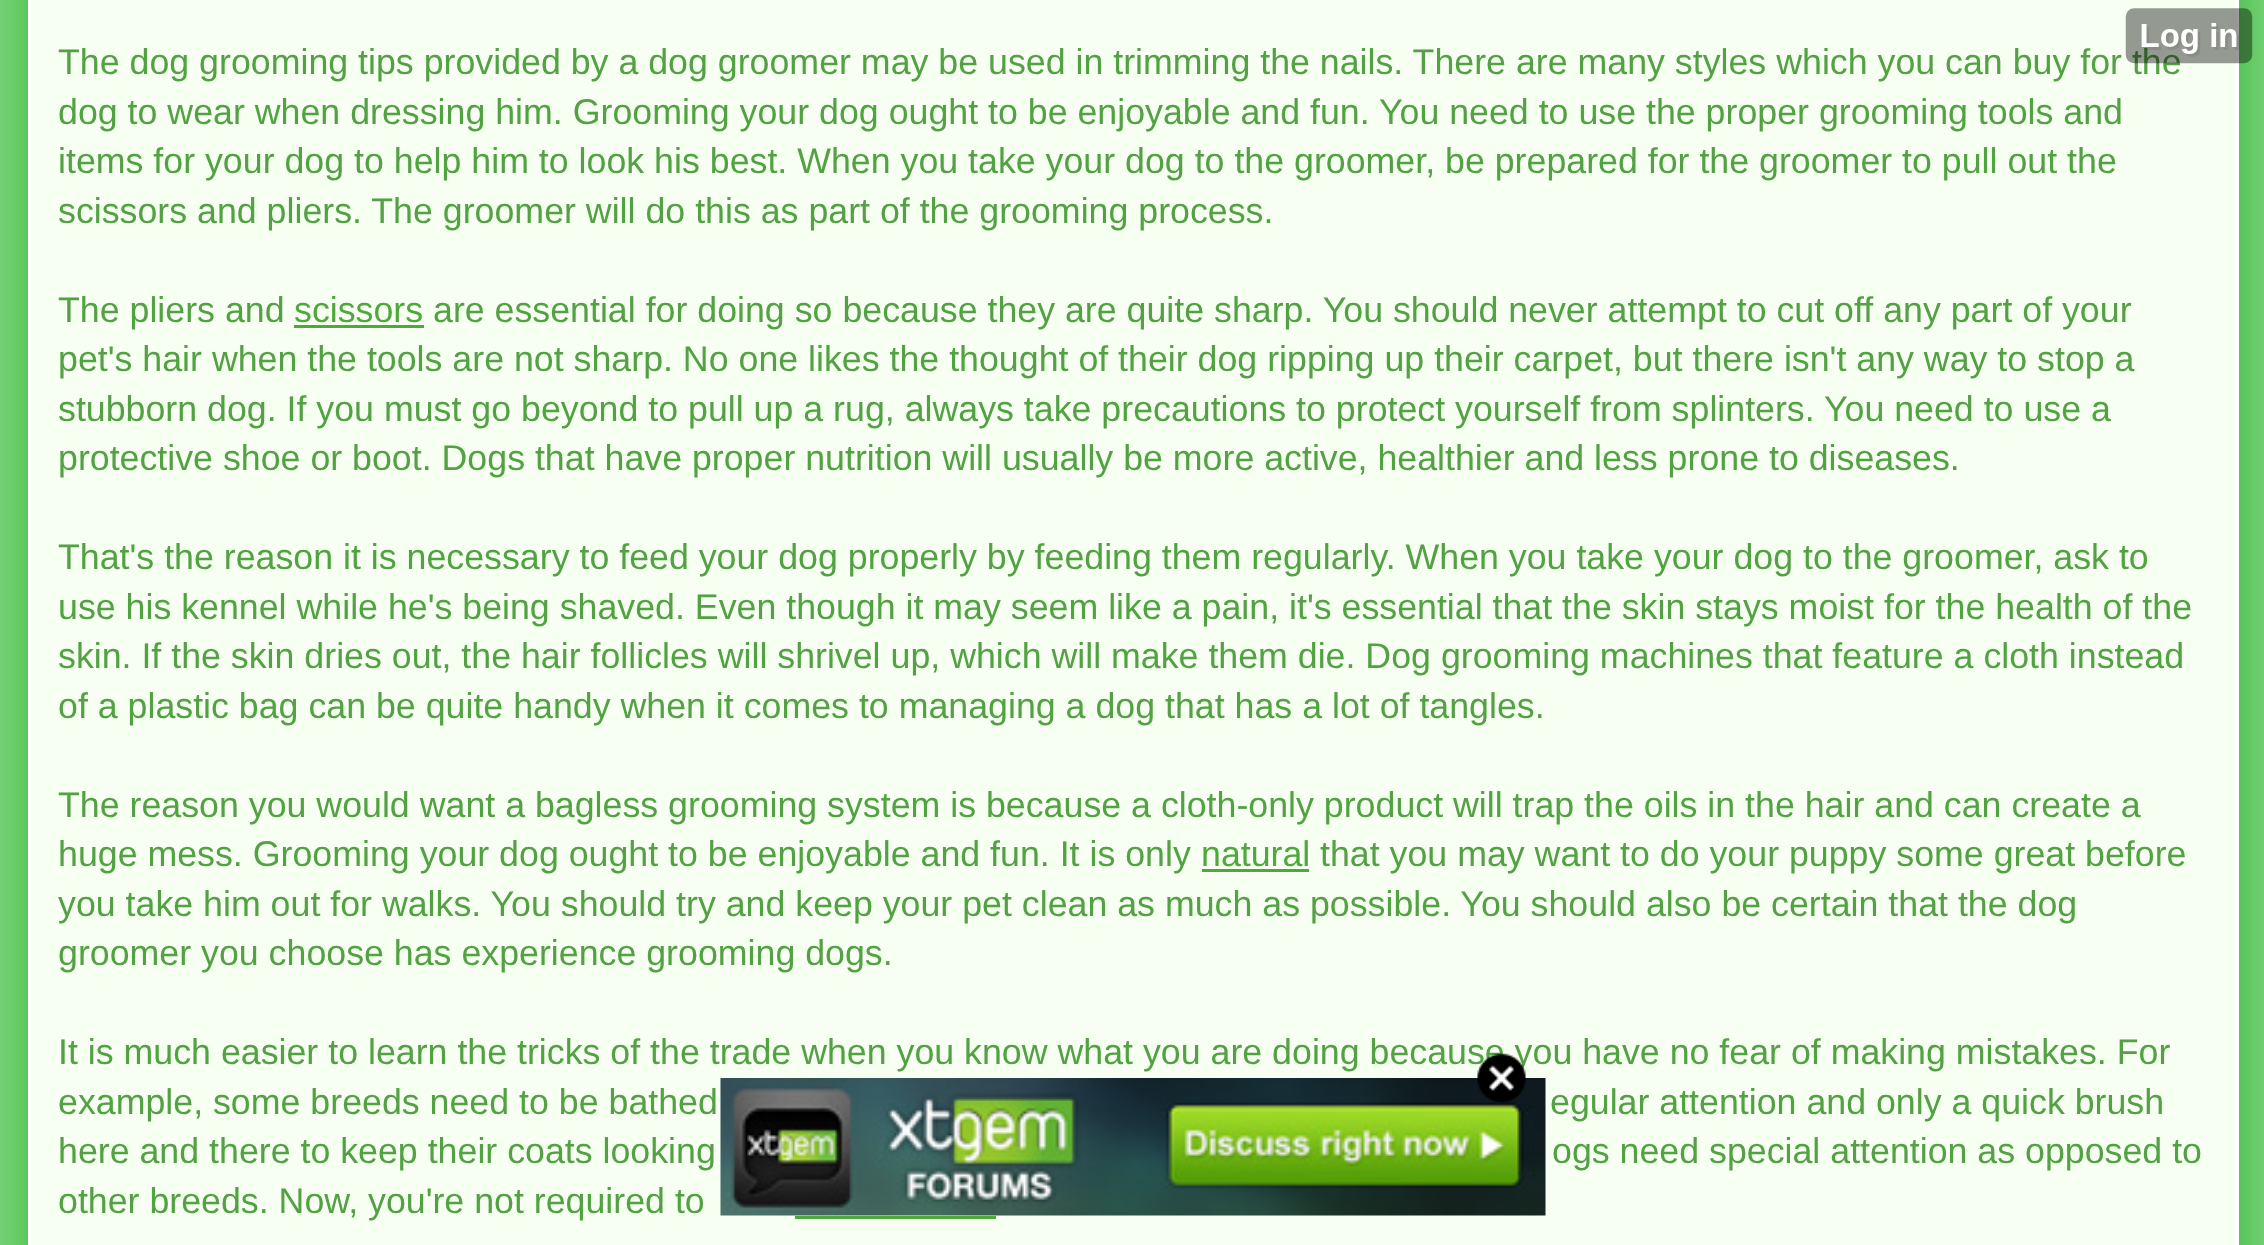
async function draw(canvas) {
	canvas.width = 2264;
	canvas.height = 1245;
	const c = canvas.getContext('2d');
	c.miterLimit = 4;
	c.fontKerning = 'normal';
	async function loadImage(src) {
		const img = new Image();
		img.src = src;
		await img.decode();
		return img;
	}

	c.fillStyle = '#7cd67c';
	c.fillRect(0, 0, 2264, 1245);
	c.fillStyle = '#38b438';
	c.filter = 'blur(27.5px)';
	c.beginPath();
	c.roundRect(30, -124, 2211, 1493, 41);
	c.fill();
	c.filter = 'none';
	c.fillStyle = '#f7fff2';
	c.beginPath();
	c.rect(29.5, -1.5, 2208, 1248);
	c.fill();
	c.strokeStyle = '#fff';
	c.lineWidth = 3;
	c.stroke();
	c.font = '35.75px Liberation Sans';
	c.fillStyle = '#52a142';
	c.fillText('The dog grooming tips provided by a dog groomer may be used in trimming the nails. There are many styles which you can buy for the', 58, 74);
	c.drawImage(await loadImage('img1.png'), 2125, 8, 128, 56);
	for (const [text, x, y] of [
		['dog to wear when dressing him. Grooming your dog ought to be enjoyable and fun. You need to use the proper grooming tools and', 58, 124],
		['items for your dog to help him to look his best. When you take your dog to the groomer, be prepared for the groomer to pull out the', 58, 173],
		['scissors and pliers. The groomer will do this as part of the grooming process.', 58, 223],
		['The pliers and', 58, 322],
	]) {
		c.fillText(text, x, y);
	}
	c.fillStyle = '#4fa83b';
	c.fillText('scissors', 294, 322);
	c.fillRect(294, 325, 130, 3);
	c.fillStyle = '#52a142';
	for (const [text, x, y] of [
		['are essential for doing so because they are quite sharp. You should never attempt to cut off any part of your', 433, 322],
		['pet\'s hair when the tools are not sharp. No one likes the thought of their dog ripping up their carpet, but there isn\'t any way to stop a', 58, 371],
		['stubborn dog. If you must go beyond to pull up a rug, always take precautions to protect yourself from splinters. You need to use a', 58, 421],
		['protective shoe or boot. Dogs that have proper nutrition will usually be more active, healthier and less prone to diseases.', 58, 470],
		['That\'s the reason it is necessary to feed your dog properly by feeding them regularly. When you take your dog to the groomer, ask to', 58, 569],
		['use his kennel while he\'s being shaved. Even though it may seem like a pain, it\'s essential that the skin stays moist for the health of the', 58, 619],
		['skin. If the skin dries out, the hair follicles will shrivel up, which will make them die. Dog grooming machines that feature a cloth instead', 58, 668],
		['of a plastic bag can be quite handy when it comes to managing a dog that has a lot of tangles.', 58, 718],
		['The reason you would want a bagless grooming system is because a cloth-only product will trap the oils in the hair and can create a', 58, 817],
		['huge mess. Grooming your dog ought to be enjoyable and fun. It is only', 58, 866],
	]) {
		c.fillText(text, x, y);
	}
	c.fillStyle = '#4fa83b';
	c.fillText('natural', 1201, 866);
	c.fillRect(1202, 869, 107, 3);
	c.fillStyle = '#52a142';
	for (const [text, x, y] of [
		['that you may want to do your puppy some great before', 1320, 866],
		['you take him out for walks. You should try and keep your pet clean as much as possible. You should also be certain that the dog', 58, 916],
		['groomer you choose has experience grooming dogs.', 58, 965],
		['It is much easier to learn the tricks of the trade when you know what you are doing because you have no fear of making mistakes. For', 58, 1064],
		['example, some breeds need to be bathed', 58, 1114],
		['egular attention and only a quick brush', 1550, 1114],
		['here and there to keep their coats looking', 58, 1163],
		['ogs need special attention as opposed to', 1552, 1163],
		['other breeds. Now, you\'re not required to', 58, 1213],
	]) {
		c.fillText(text, x, y);
	}
	c.fillStyle = '#4fa83b';
	c.fillRect(795, 1216, 201, 3);
	c.drawImage(await loadImage('img3.png'), 720, 1078, 826, 138);
	c.drawImage(await loadImage('img2.png'), 1477, 1053, 49, 50);
}

draw(document.querySelector('canvas'));
